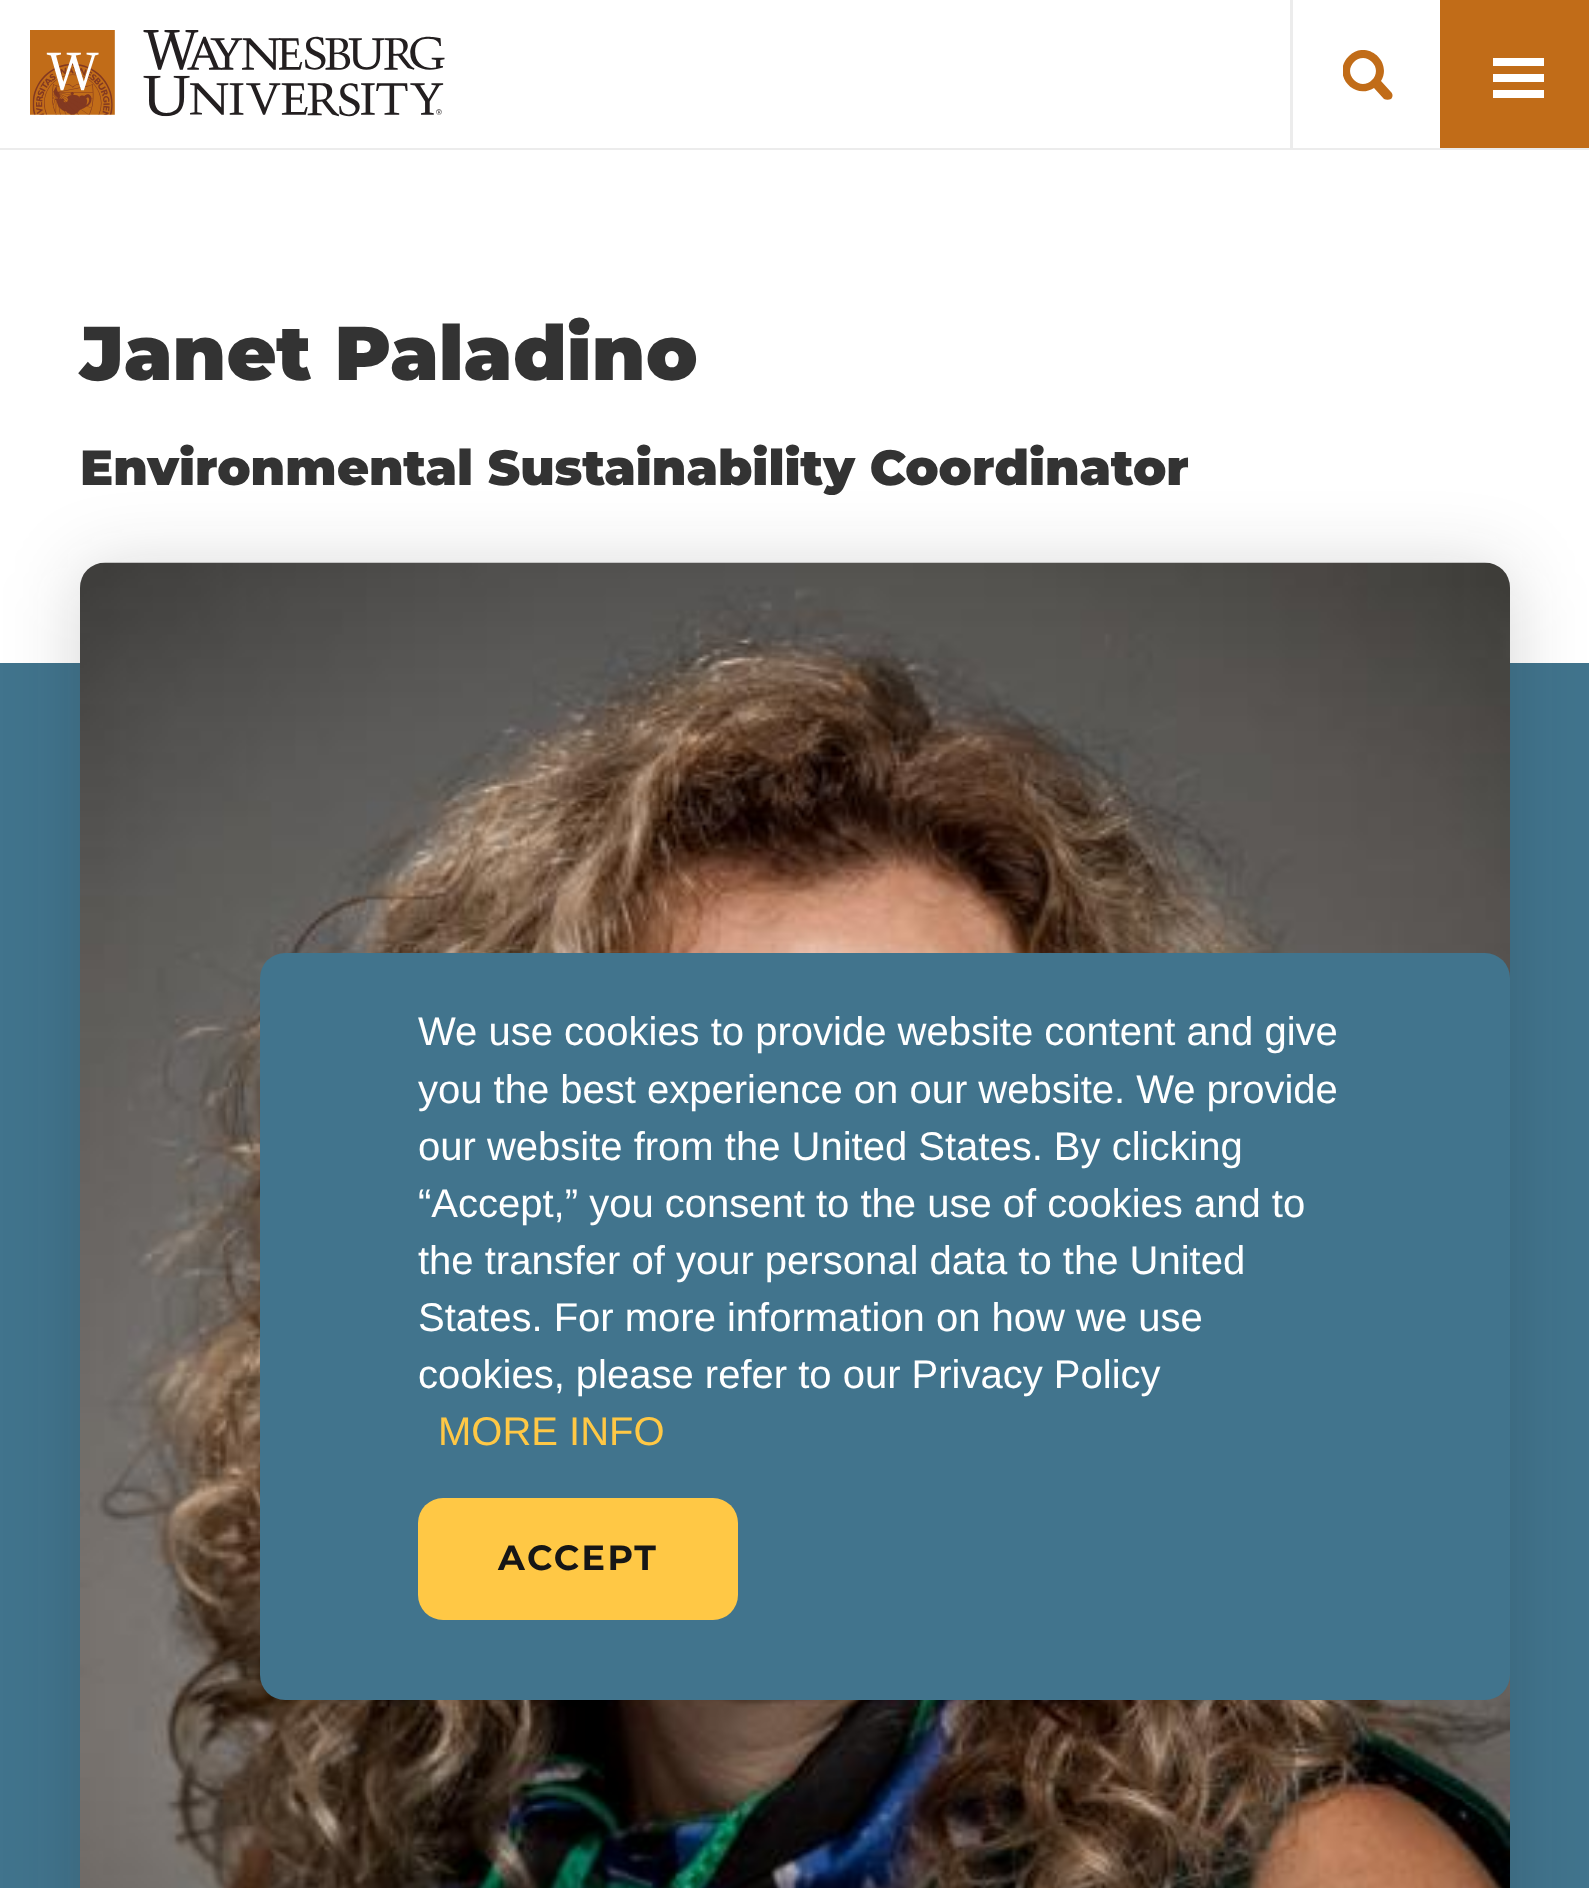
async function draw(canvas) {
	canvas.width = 1589;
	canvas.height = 1888;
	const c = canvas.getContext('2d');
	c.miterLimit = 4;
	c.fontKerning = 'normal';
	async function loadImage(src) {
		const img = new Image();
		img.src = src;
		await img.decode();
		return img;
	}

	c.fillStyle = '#fff';
	c.fillRect(0, 0, 1589, 1888);
	c.fillStyle = '#ececec';
	c.fillRect(0, 148, 1589, 2);
	c.drawImage(await loadImage('img1.png'), 30, 30, 415, 87);
	c.fillRect(1290, 0, 3, 148);
	c.save();
	c.beginPath();
	c.rect(1343, 50, 50, 50);
	c.clip();
	c.fillStyle = '#c16c18';
	c.beginPath();
	c.moveTo(1372, 62);
	c.bezierCurveTo(1360, 50, 1342, 68, 1354, 80);
	c.bezierCurveTo(1366, 92, 1384, 74, 1372, 62);
	c.moveTo(1391, 99);
	c.bezierCurveTo(1389, 100, 1386, 100, 1384, 99);
	c.lineTo(1374, 88);
	c.bezierCurveTo(1353, 101, 1331, 73, 1349, 56);
	c.bezierCurveTo(1366, 39, 1393, 61, 1381, 81);
	c.lineTo(1391, 92);
	c.bezierCurveTo(1393, 94, 1393, 97, 1391, 99);
	c.fill('evenodd');
	c.restore();
	c.fillStyle = '#c16c18';
	c.fillRect(1440, 0, 149, 148);
	c.fillStyle = '#fff';
	c.beginPath();
	c.moveTo(1493, 66);
	c.lineTo(1493, 58);
	c.lineTo(1544, 58);
	c.lineTo(1544, 66);
	c.closePath();
	c.moveTo(1493, 82);
	c.lineTo(1493, 74);
	c.lineTo(1544, 74);
	c.lineTo(1544, 82);
	c.closePath();
	c.moveTo(1493, 98);
	c.lineTo(1493, 90);
	c.lineTo(1544, 90);
	c.lineTo(1544, 98);
	c.closePath();
	c.fill('evenodd');
	c.font = '900 76.25px Montserrat';
	c.fillStyle = '#333';
	c.fillText('Janet Paladino', 80, 380);
	c.font = '900 49.25px Montserrat';
	c.fillText('Environmental Sustainability Coordinator', 80, 485);
	c.fillStyle = '#41748d';
	c.fillRect(0, 663, 1589, 1225);
	c.fillStyle = '#1616162e';
	c.filter = 'blur(37.5px)';
	c.beginPath();
	c.roundRect(80, 568, 1430, 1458, 25);
	c.fill();
	c.filter = 'none';
	c.drawImage(await loadImage('img2.png'), 80, 562, 1430, 1326);
	c.fillStyle = '#41748d';
	c.beginPath();
	c.roundRect(260, 953, 1250, 747, 25);
	c.fill();
	c.font = '40px Liberation Sans';
	c.fillStyle = '#fff';
	for (const [text, x, y] of [
		['We use cookies to provide website content and give', 418, 1045],
		['you the best experience on our website. We provide', 418, 1103],
		['our website from the United States. By clicking', 418, 1160],
		['“Accept,” you consent to the use of cookies and to', 418, 1217],
		['the transfer of your personal data to the United', 418, 1274],
		['States. For more information on how we use', 418, 1331],
		['cookies, please refer to our Privacy Policy', 418, 1388],
	]) {
		c.fillText(text, x, y);
	}
	c.fillStyle = '#ffc845';
	c.fillText('MORE INFO', 438, 1445);
	c.beginPath();
	c.roundRect(418, 1498, 320, 122, 25);
	c.fill();
	c.letterSpacing = '2.5px';
	c.font = 'bold 35px Montserrat';
	c.fillStyle = '#161616';
	c.fillText('ACCEPT', 498, 1570);
}

draw(document.querySelector('canvas'));
